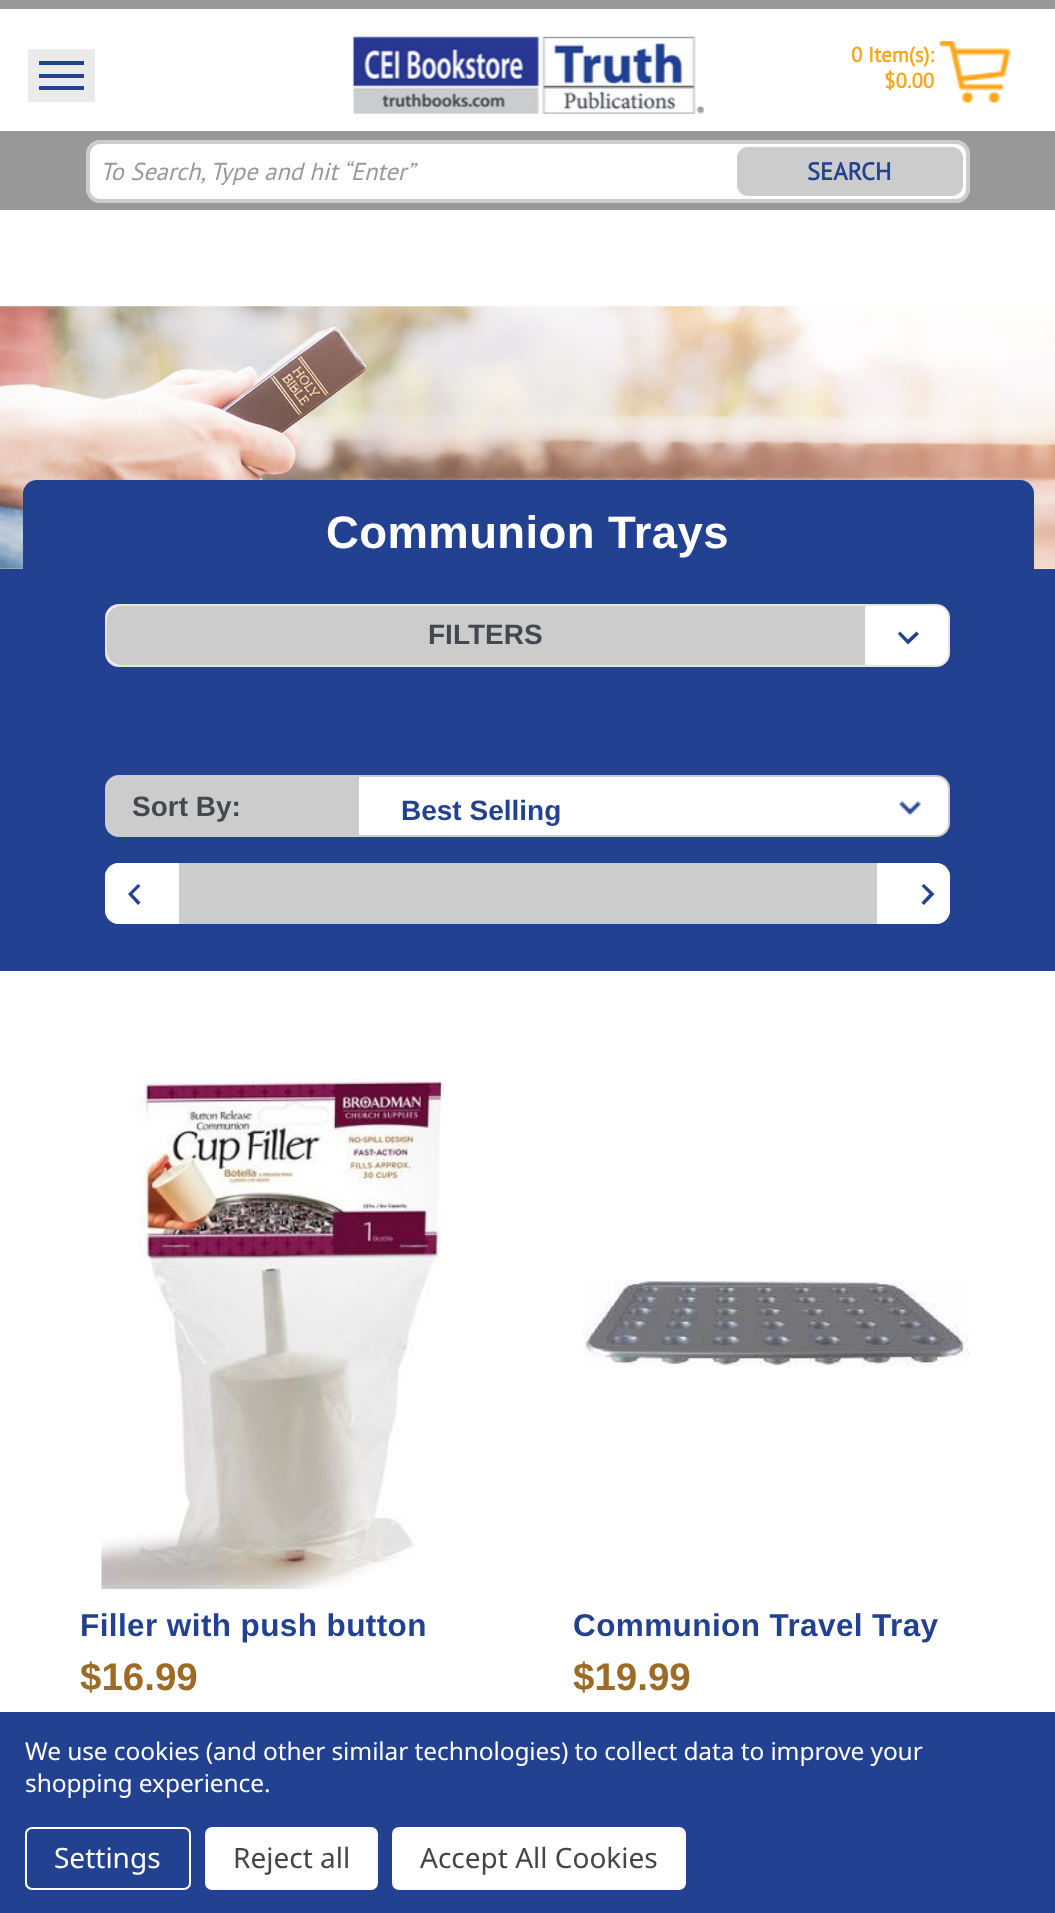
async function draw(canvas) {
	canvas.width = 1055;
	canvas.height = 1913;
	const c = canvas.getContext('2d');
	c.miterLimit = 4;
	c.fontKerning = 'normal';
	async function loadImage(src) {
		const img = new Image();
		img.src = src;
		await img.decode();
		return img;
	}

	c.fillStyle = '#fff';
	c.fillRect(0, 0, 1055, 1913);
	for (const [x, y, w, h, color] of [
		[0, 0, 1055, 9, '#999'],
		[28, 49, 67, 53, '#ebebeb'],
		[39, 74, 45, 4, '#224191'],
		[39, 61, 45, 4, '#224191'],
		[39, 86, 45, 4, '#224191'],
	]) {
		c.fillStyle = color;
		c.fillRect(x, y, w, h);
	}
	c.drawImage(await loadImage('img1.png'), 352, 36, 352, 78);
	c.font = 'bold 21px PT Sans';
	c.fillStyle = '#faa619';
	c.fillText('0 Item(s):', 851, 62);
	c.fillText('$0.00', 884, 88);
	c.drawImage(await loadImage('img2.png'), 939, 41, 72, 62);
	c.fillStyle = '#989898';
	c.fillRect(0, 131, 1055, 79);
	c.fillStyle = '#fff';
	c.beginPath();
	c.roundRect(88, 142, 880, 59, 12);
	c.fill();
	c.strokeStyle = '#ccc';
	c.lineWidth = 4;
	c.stroke();
	c.font = 'italic 24.5px PT Sans';
	c.fillStyle = '#999';
	c.fillText('To Search, Type and hit “Enter”', 100, 180);
	c.fillStyle = '#ccc';
	c.beginPath();
	c.roundRect(737, 147, 226, 49, 11);
	c.fill();
	c.font = 'bold 24.5px PT Sans';
	c.fillStyle = '#224191';
	c.fillText('SEARCH', 807, 180);
	c.drawImage(await loadImage('img3.png'), 0, 306, 1055, 263);
	c.beginPath();
	c.roundRect(23, 480, 1011, 89, [14, 14, 0, 0]);
	c.fill();
	c.letterSpacing = '0.4px';
	c.font = 'bold 45.5px Liberation Sans';
	c.fillStyle = '#fff';
	c.fillText('Communion Trays', 326, 548);
	c.fillStyle = '#224191';
	c.fillRect(0, 569, 1055, 402);
	c.fillStyle = '#fff';
	c.beginPath();
	c.roundRect(106, 605, 843, 61, 13);
	c.fill();
	c.strokeStyle = '#e5e5e5';
	c.lineWidth = 2;
	c.stroke();
	c.fillStyle = '#ccc';
	c.beginPath();
	c.roundRect(107, 606, 758, 59, [14, 0, 0, 14]);
	c.fill();
	c.letterSpacing = '0px';
	c.font = 'bold 28px Liberation Sans';
	c.fillStyle = '#41484f';
	c.fillText('FILTERS', 428, 644);
	c.fillStyle = '#224191';
	c.beginPath();
	c.moveTo(900, 631.5);
	c.lineTo(908, 639.5);
	c.lineTo(916.5, 631.5);
	c.lineTo(919, 634);
	c.lineTo(908, 644.5);
	c.lineTo(898, 634);
	c.closePath();
	c.fill();
	c.fillStyle = '#fff';
	c.beginPath();
	c.roundRect(106, 776, 843, 60, 13);
	c.fill();
	c.strokeStyle = '#ccc';
	c.stroke();
	c.fillStyle = '#ccc';
	c.beginPath();
	c.roundRect(107, 777, 252, 58, [12, 0, 0, 12]);
	c.fill();
	c.fillStyle = '#41484f';
	c.fillText('Sort By:', 132, 816);
	c.drawImage(await loadImage('img4.png'), 899, 801, 22, 15);
	c.fillStyle = '#224191';
	c.fillText('Best Selling', 401, 820);
	c.fillStyle = '#ccc';
	c.beginPath();
	c.roundRect(105, 863, 845, 61, 14);
	c.fill();
	c.fillStyle = '#fff';
	c.beginPath();
	c.roundRect(105, 863, 74, 61, [14, 0, 0, 14]);
	c.fill();
	c.fillStyle = '#224191';
	c.beginPath();
	c.moveTo(140.5, 886);
	c.lineTo(138, 884);
	c.lineTo(128, 894);
	c.lineTo(138, 905);
	c.lineTo(140.5, 902.5);
	c.lineTo(132.5, 894);
	c.closePath();
	c.fill();
	c.fillStyle = '#fff';
	c.beginPath();
	c.roundRect(877, 863, 73, 61, [0, 14, 14, 0]);
	c.fill();
	c.fillStyle = '#224191';
	c.beginPath();
	c.moveTo(924, 884);
	c.lineTo(921.5, 886);
	c.lineTo(929.5, 894);
	c.lineTo(921.5, 902.5);
	c.lineTo(924, 905);
	c.lineTo(934.5, 894);
	c.closePath();
	c.fill();
	c.drawImage(await loadImage('img5.png'), 101, 1078, 345, 511);
	c.letterSpacing = '0.4px';
	c.font = 'bold 31.5px Liberation Sans';
	c.fillText('Filler with push button', 80, 1636);
	c.letterSpacing = '0px';
	c.font = 'bold 38.5px Liberation Sans';
	c.fillStyle = '#9d6b25';
	c.fillText('$16.99', 80, 1690);
	c.drawImage(await loadImage('img6.png'), 583, 1280, 387, 87);
	c.letterSpacing = '0.4px';
	c.font = 'bold 31.5px Liberation Sans';
	c.fillStyle = '#224191';
	c.fillText('Communion Travel Tray', 573, 1636);
	c.letterSpacing = '0px';
	c.font = 'bold 38.5px Liberation Sans';
	c.fillStyle = '#9d6b25';
	c.fillText('$19.99', 573, 1690);
	c.fillStyle = '#224191';
	c.fillRect(0, 1712, 1055, 201);
	c.letterSpacing = '-0.1px';
	c.font = '24.5px Noto Sans';
	c.fillStyle = '#fff';
	c.fillText('We use cookies (and other similar technologies) to collect data to improve your', 25, 1760);
	c.fillText('shopping experience.', 25, 1792);
	c.beginPath();
	c.roundRect(26, 1828, 164, 61, 6);
	c.strokeStyle = '#fff';
	c.stroke();
	c.letterSpacing = '0px';
	c.font = '28px Noto Sans';
	c.fillText('Settings', 54, 1868);
	c.beginPath();
	c.roundRect(205, 1827, 173, 63, 7);
	c.fill();
	c.fillStyle = '#454545';
	c.fillText('Reject all', 233, 1868);
	c.fillStyle = '#fff';
	c.beginPath();
	c.roundRect(392, 1827, 294, 63, 7);
	c.fill();
	c.fillStyle = '#454545';
	c.fillText('Accept All Cookies', 420, 1868);
}

draw(document.querySelector('canvas'));
